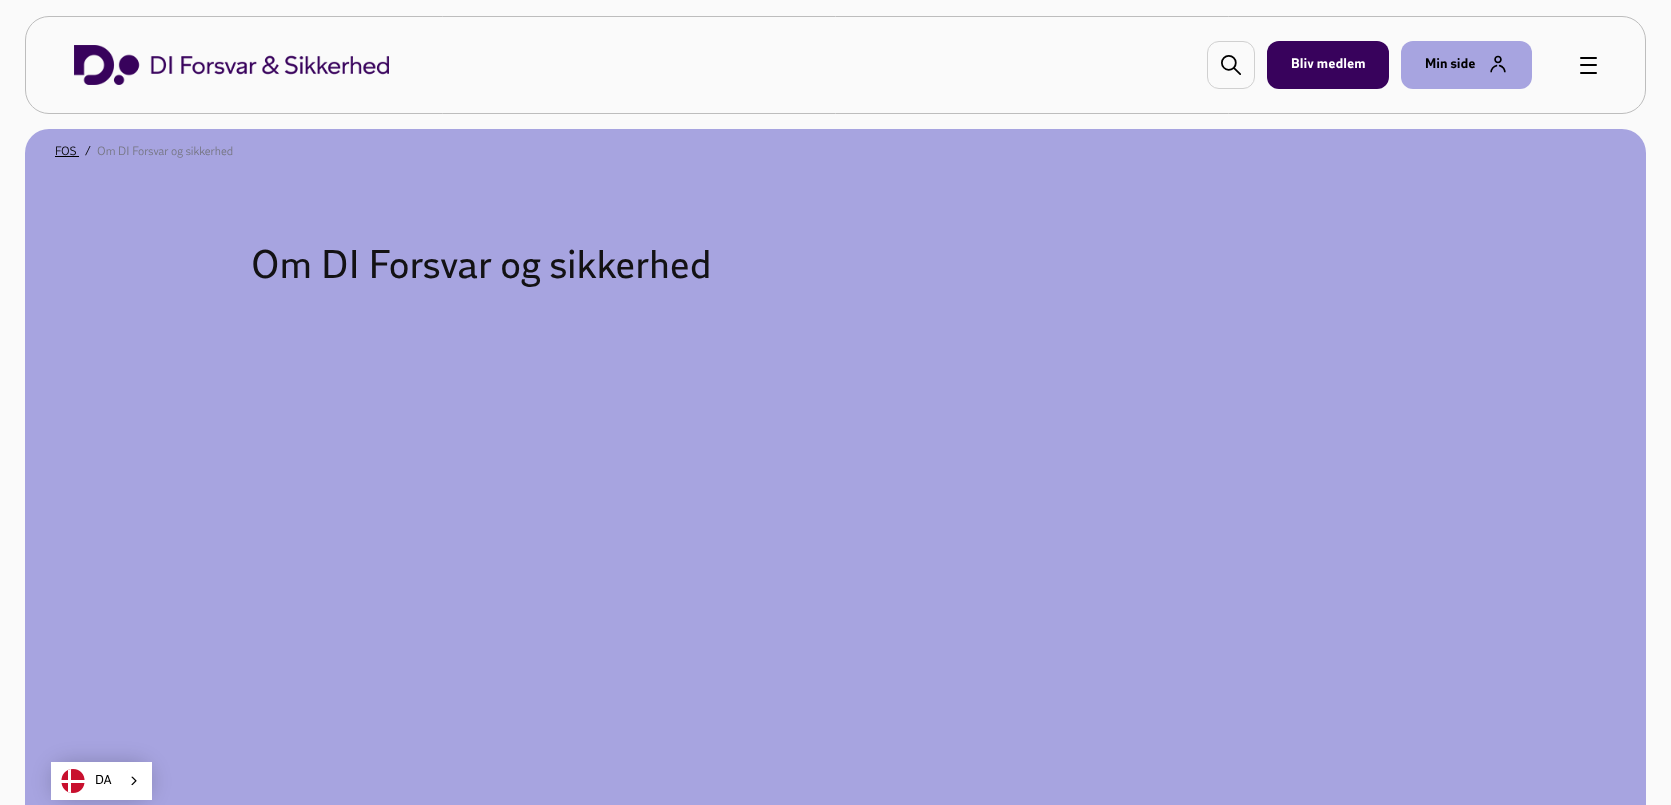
async function draw(canvas) {
	canvas.width = 1671;
	canvas.height = 805;
	const c = canvas.getContext('2d');
	c.miterLimit = 4;
	c.fontKerning = 'normal';
	async function loadImage(src) {
		const img = new Image();
		img.src = src;
		await img.decode();
		return img;
	}

	c.fillStyle = '#fafafa';
	c.fillRect(0, 0, 1671, 805);
	c.beginPath();
	c.roundRect(25.5, 16.5, 1620, 97, 23.5);
	c.strokeStyle = '#bdbdbd';
	c.stroke();
	c.drawImage(await loadImage('img1.png'), 74, 45, 315, 40);
	c.beginPath();
	c.roundRect(1207.5, 41.5, 47, 47, 11.5);
	c.strokeStyle = '#d0d0d0';
	c.stroke();
	c.drawImage(await loadImage('img2.png'), 1221, 55, 20, 20);
	c.fillStyle = '#38025c';
	c.beginPath();
	c.roundRect(1267, 41, 122, 48, 12);
	c.fill();
	c.font = 'bold 14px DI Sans';
	c.fillStyle = '#fff';
	c.fillText('Bliv medlem', 1291, 68);
	c.fillStyle = '#a7a4e0';
	c.beginPath();
	c.roundRect(1401, 41, 131, 48, 12);
	c.fill();
	c.fillStyle = '#000';
	c.fillText('Min side', 1425, 68);
	c.drawImage(await loadImage('img3.png'), 1490, 55, 16, 18);
	c.beginPath();
	c.roundRect(1580, 57, 17, 2, 1);
	c.fill();
	c.beginPath();
	c.roundRect(1580, 64, 17, 2, 1);
	c.fill();
	c.beginPath();
	c.roundRect(1580, 72, 17, 2, 1);
	c.fill();
	c.fillStyle = '#a7a4e0';
	c.beginPath();
	c.roundRect(25, 129, 1621, 46, [24, 24, 0, 0]);
	c.fill();
	c.font = '12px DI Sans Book';
	c.fillStyle = '#000';
	c.fillText('FOS', 55, 155);
	c.fillRect(55, 156, 24, 1);
	c.fillText('/', 85, 155);
	c.fillStyle = '#757581';
	c.fillText('Om DI Forsvar og sikkerhed', 97, 155);
	c.fillStyle = '#a7a4e0';
	c.fillRect(25, 175, 1621, 630);
	c.font = '40px DI Sans';
	c.fillStyle = '#131214';
	c.fillText('Om DI Forsvar og sikkerhed', 251, 278);
	c.fillStyle = '#00000033';
	c.filter = 'blur(10px)';
	c.beginPath();
	c.roundRect(51, 762, 101, 38, 19);
	c.fill();
	c.filter = 'none';
	c.fillStyle = '#fff';
	c.fillRect(51, 762, 101, 38);
	c.fillStyle = '#c8102e';
	c.beginPath();
	c.moveTo(73, 769);
	c.bezierCurveTo(88.5, 769, 88.5, 793, 73, 793);
	c.bezierCurveTo(57.5, 793, 57.5, 769, 73, 769);
	c.closePath();
	c.fill();
	c.fillStyle = '#fff';
	c.beginPath();
	c.moveTo(68, 770);
	c.lineTo(71, 769);
	c.lineTo(71, 793);
	c.lineTo(68, 792);
	c.closePath();
	c.fill();
	c.fillRect(61, 780, 24, 3);
	c.font = '13px DI Sans';
	c.fillStyle = '#000';
	c.fillText('DA', 95, 784);
	c.drawImage(await loadImage('img4.png'), 131, 776, 6, 10);
}

draw(document.querySelector('canvas'));
